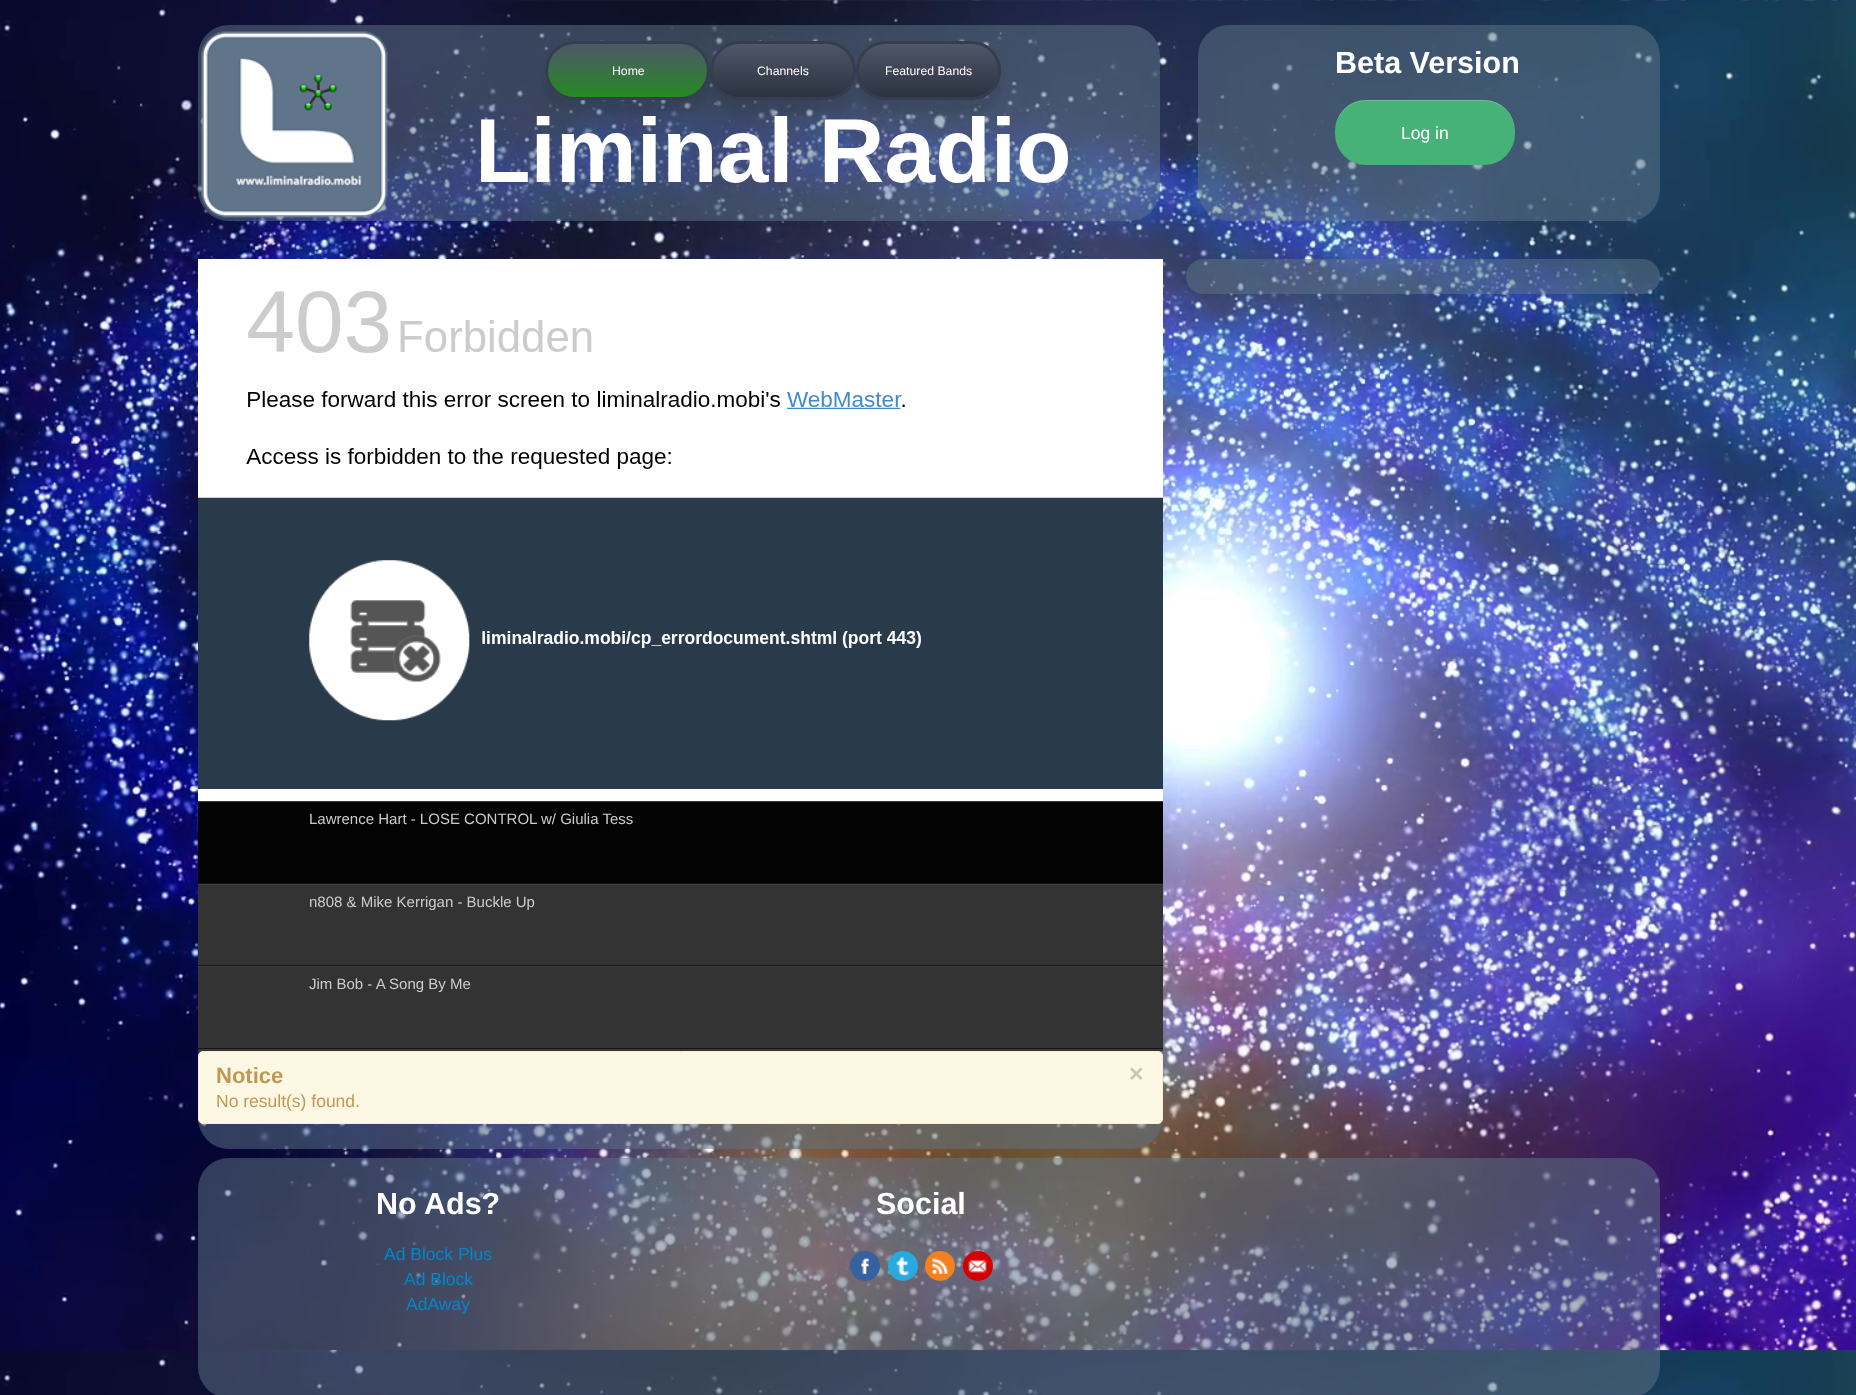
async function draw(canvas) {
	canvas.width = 1856;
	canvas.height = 1395;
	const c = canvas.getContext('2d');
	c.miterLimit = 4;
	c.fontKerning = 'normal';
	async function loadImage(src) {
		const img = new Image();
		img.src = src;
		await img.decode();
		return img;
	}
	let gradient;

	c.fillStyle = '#fff';
	c.fillRect(0, 0, 1856, 1395);
	c.drawImage(await loadImage('img1.png'), 0, 0, 1856, 1395);
	c.fillStyle = '#60758a80';
	c.beginPath();
	c.roundRect(198, 25, 962, 196, 31);
	c.fill();
	c.drawImage(await loadImage('img2.png'), 201, 31, 187, 187);
	c.fillStyle = '#00000012';
	c.filter = 'blur(2.5px)';
	c.beginPath();
	c.roundRect(545, 54, 165, 59, 29.5);
	c.fill();
	c.filter = 'none';
	c.save();
	c.beginPath();
	c.roundRect(545, 41, 165, 59, 29.5);
	c.clip();
	gradient = c.createLinearGradient(628, 44, 628, 98);
	gradient.addColorStop(0, '#4f5768');
	gradient.addColorStop(1, '#248b23');
	c.fillStyle = gradient;
	c.fillRect(545, 44, 165, 54);
	c.restore();
	c.beginPath();
	c.roundRect(546.5, 42.5, 162, 56, 28);
	c.strokeStyle = '#353d50';
	c.lineWidth = 3;
	c.stroke();
	c.font = '12.25px Liberation Sans';
	c.fillStyle = '#fff';
	c.fillText('Home', 612, 75);
	c.fillStyle = '#00000012';
	c.filter = 'blur(2.5px)';
	c.beginPath();
	c.roundRect(710, 54, 146, 59, 29.5);
	c.fill();
	c.filter = 'none';
	c.save();
	c.beginPath();
	c.roundRect(710, 41, 146, 59, 29.5);
	c.clip();
	gradient = c.createLinearGradient(783, 44, 783, 98);
	gradient.addColorStop(0, '#4f5768');
	gradient.addColorStop(1, '#2a313f');
	c.fillStyle = gradient;
	c.fillRect(710, 44, 146, 54);
	c.restore();
	c.beginPath();
	c.roundRect(711.5, 42.5, 143, 56, 28);
	c.stroke();
	c.fillStyle = '#fff';
	c.fillText('Channels', 757, 75);
	c.fillStyle = '#00000012';
	c.filter = 'blur(2.5px)';
	c.beginPath();
	c.roundRect(856, 54, 145, 59, 29.5);
	c.fill();
	c.filter = 'none';
	c.save();
	c.beginPath();
	c.roundRect(856, 41, 145, 59, 29.5);
	c.clip();
	gradient = c.createLinearGradient(929, 44, 929, 98);
	gradient.addColorStop(0, '#4f5768');
	gradient.addColorStop(1, '#2a313f');
	c.fillStyle = gradient;
	c.fillRect(856, 44, 145, 54);
	c.restore();
	c.beginPath();
	c.roundRect(857.5, 42.5, 142, 56, 28);
	c.stroke();
	c.fillStyle = '#fff';
	c.fillText('Featured Bands', 885, 75);
	c.font = 'bold 91px Liberation Sans';
	c.fillText('Liminal Radio', 475, 182);
	c.fillStyle = '#60758a80';
	c.beginPath();
	c.roundRect(1198, 25, 462, 196, 31);
	c.fill();
	c.font = 'bold 30.5px Liberation Sans';
	c.fillStyle = '#fff';
	c.fillText('Beta Version', 1335, 73);
	c.fillStyle = '#46b277';
	c.beginPath();
	c.roundRect(1335, 100, 180, 65, 31);
	c.fill();
	c.fillStyle = '#ffffff33';
	c.beginPath();
	c.moveTo(1366, 101);
	c.lineTo(1484, 101);
	c.bezierCurveTo(1501, 101, 1515, 115, 1515, 132);
	c.lineTo(1515, 131);
	c.bezierCurveTo(1515, 114, 1501, 100, 1484, 100);
	c.lineTo(1366, 100);
	c.bezierCurveTo(1349, 100, 1335, 114, 1335, 131);
	c.lineTo(1335, 132);
	c.bezierCurveTo(1335, 115, 1349, 101, 1366, 101);
	c.closePath();
	c.fill();
	c.font = '17.5px Liberation Sans';
	c.fillStyle = '#fff';
	c.fillText('Log in', 1401, 139);
	c.fillStyle = '#60758a80';
	c.beginPath();
	c.roundRect(1186, 259, 474, 35, 17.5);
	c.fill();
	c.beginPath();
	c.roundRect(198, 259, 965, 890, 31);
	c.fill();
	c.drawImage(await loadImage('img3.png'), 198, 259, 965, 542);
	for (const [x, y, w, h, color] of [
		[198, 885, 965, 166, '#333'],
		[198, 802, 965, 81, '#030303'],
		[198, 801, 965, 1, '#3c3c3c'],
		[198, 883, 965, 1, '#141414'],
	]) {
		c.fillStyle = color;
		c.fillRect(x, y, w, h);
	}
	c.font = '15px Liberation Sans';
	c.fillStyle = '#ccc';
	c.fillText('Lawrence Hart - LOSE CONTROL w/ Giulia Tess', 309, 824);
	c.fillStyle = '#3c3c3c';
	c.fillRect(198, 884, 965, 1);
	c.fillStyle = '#141414';
	c.fillRect(198, 965, 965, 1);
	c.fillStyle = '#ccc';
	c.fillText('n808 & Mike Kerrigan - Buckle Up', 309, 907);
	c.fillStyle = '#3c3c3c';
	c.fillRect(198, 966, 965, 1);
	c.fillStyle = '#141414';
	c.fillRect(198, 1048, 965, 1);
	c.fillStyle = '#ccc';
	c.fillText('Jim Bob - A Song By Me', 309, 989);
	c.fillStyle = '#3c3c3c';
	c.fillRect(198, 1049, 965, 1);
	c.fillStyle = '#fcf8e3';
	c.beginPath();
	c.roundRect(198.5, 1051.5, 964, 72, 4.5);
	c.fill();
	c.strokeStyle = '#fbeed5';
	c.lineWidth = 1;
	c.stroke();
	c.font = 'bold 22px Liberation Sans';
	c.fillStyle = '#c09853';
	c.fillText('Notice', 216, 1083);
	c.font = 'bold 25px Liberation Sans';
	c.fillStyle = '#cac6b6';
	c.fillText('×', 1129, 1082);
	c.font = '17.5px Liberation Sans';
	c.fillStyle = '#c09853';
	c.fillText('No result(s) found.', 216, 1107);
	c.fillStyle = '#60758a80';
	c.beginPath();
	c.roundRect(198, 1158, 1462, 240, 31);
	c.fill();
	c.font = 'bold 30.5px Liberation Sans';
	c.fillStyle = '#fff';
	c.fillText('No Ads?', 376, 1214);
	c.font = '17.5px Liberation Sans';
	c.fillStyle = '#08c';
	for (const [text, x, y] of [
		['Ad Block Plus', 384, 1260],
		['Ad Block', 404, 1285],
		['AdAway', 406, 1310],
	]) {
		c.fillText(text, x, y);
	}
	c.font = 'bold 30.5px Liberation Sans';
	c.fillStyle = '#fff';
	c.fillText('Social', 876, 1214);
	c.fillStyle = '#36609f';
	c.beginPath();
	c.arc(865, 1266, 15, 0, 2 * Math.PI);
	c.fill();
	c.drawImage(await loadImage('img4.png'), 861, 1258, 8, 16);
	c.fillStyle = '#2aa9e0';
	c.beginPath();
	c.arc(903, 1266, 15, 0, 2 * Math.PI);
	c.fill();
	c.drawImage(await loadImage('img5.png'), 896, 1257, 13, 19);
	c.fillStyle = '#f48020';
	c.beginPath();
	c.arc(940, 1266, 15, 0, 2 * Math.PI);
	c.fill();
	c.drawImage(await loadImage('img6.png'), 932, 1258, 16, 16);
	c.fillStyle = '#d40000';
	c.beginPath();
	c.arc(978, 1266, 15, 0, 2 * Math.PI);
	c.fill();
	c.drawImage(await loadImage('img7.png'), 968, 1259, 19, 14);
}

draw(document.querySelector('canvas'));
